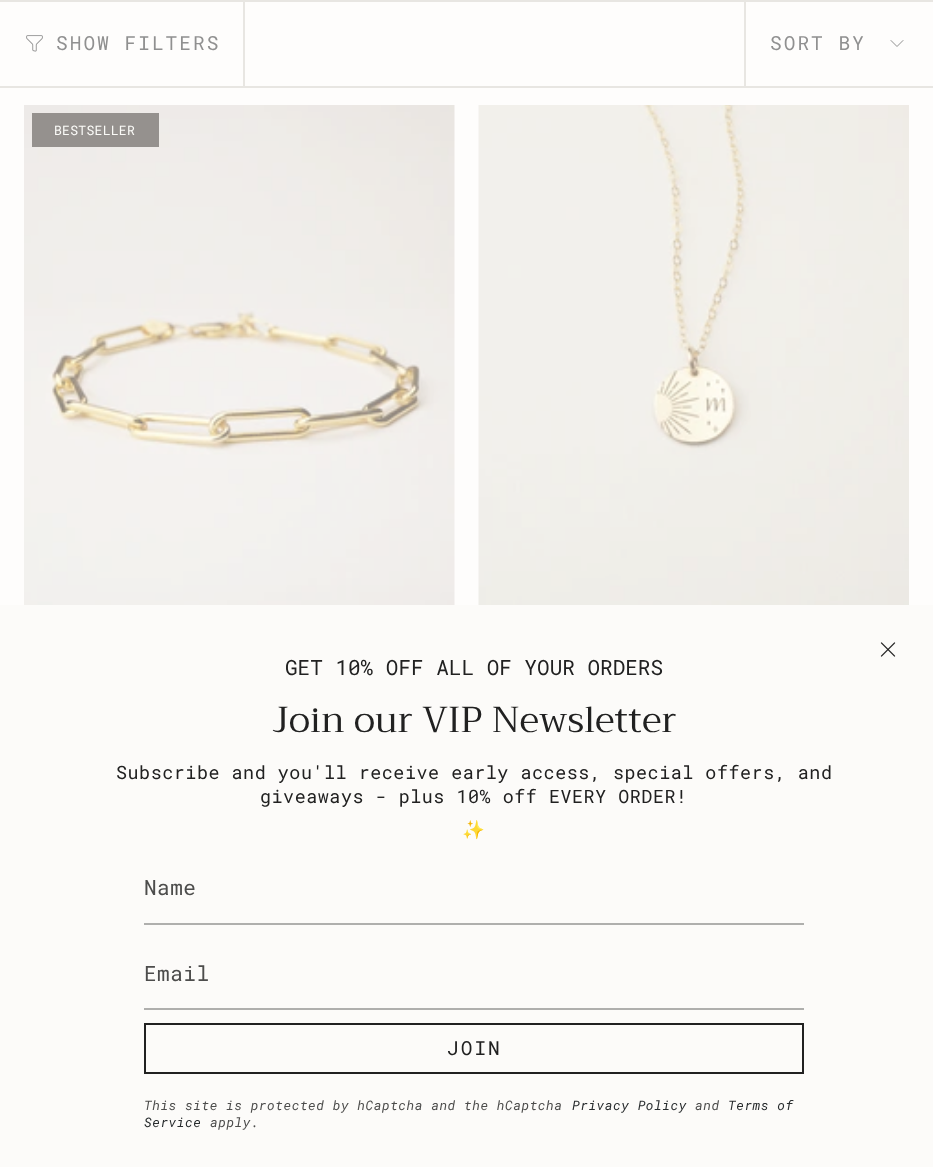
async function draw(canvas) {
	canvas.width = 933;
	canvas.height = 1167;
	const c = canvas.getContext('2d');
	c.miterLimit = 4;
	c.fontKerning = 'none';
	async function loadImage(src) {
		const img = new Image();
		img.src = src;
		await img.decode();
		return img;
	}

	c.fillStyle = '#fefdfc';
	c.fillRect(0, 0, 933, 1167);
	for (const [x, y, w, h, color] of [
		[0, 0, 933, 2, '#e8e6e2'],
		[0, 86, 933, 2, '#e8e6e2'],
		[243, 2, 2, 84, '#e8e6e2'],
	]) {
		c.fillStyle = color;
		c.fillRect(x, y, w, h);
	}
	c.drawImage(await loadImage('img1.png'), 26, 35, 17, 17);
	c.letterSpacing = '2px';
	c.font = '19.5px Roboto Mono';
	c.fillStyle = '#909090';
	c.fillText('SHOW FILTERS', 56, 50);
	c.fillStyle = '#e8e6e2';
	c.fillRect(744, 2, 2, 84);
	c.fillStyle = '#909090';
	c.fillText('SORT BY', 770, 50);
	c.beginPath();
	c.moveTo(891, 40.5);
	c.lineTo(897, 46.5);
	c.lineTo(903, 40.5);
	c.strokeStyle = '#909090';
	c.lineCap = 'round';
	c.lineJoin = 'round';
	c.stroke();
	c.drawImage(await loadImage('img2.png'), 24, 105, 431, 500);
	c.fillStyle = '#95918e';
	c.fillRect(32, 113, 127, 34);
	c.letterSpacing = '0.25px';
	c.font = '13.1px Roboto Mono';
	c.fillStyle = '#fbfbf8';
	c.fillText('BESTSELLER', 54, 135);
	c.drawImage(await loadImage('img3.png'), 478, 105, 431, 500);
	c.fillStyle = '#fcfbf9';
	c.fillRect(0, 605, 933, 562);
	c.drawImage(await loadImage('img4.png'), 880, 642, 16, 15);
	c.letterSpacing = '0px';
	c.font = '21px Roboto Mono';
	c.fillStyle = '#212121';
	c.fillText('GET 10% OFF ALL OF YOUR ORDERS', 285, 675);
	c.font = '36px Trirong';
	c.fillText('Join our VIP Newsletter', 272, 732);
	c.letterSpacing = '0.52px';
	c.font = '18.4px Roboto Mono';
	c.fillText('Subscribe and you\'ll receive early access, special offers, and', 116, 779);
	c.fillText('giveaways - plus 10% off EVERY ORDER!', 260, 803);
	c.font = '18.4px Noto Color Emoji';
	c.fillText('✨', 462, 836);
	c.fillStyle = '#afafad';
	c.fillRect(144, 923, 660, 2);
	c.font = '21px Roboto Mono';
	c.fillStyle = '#4d4d4c';
	c.fillText('Name', 144, 895);
	c.fillStyle = '#afafad';
	c.fillRect(144, 1008, 660, 2);
	c.fillStyle = '#4d4d4c';
	c.fillText('Email', 144, 981);
	c.strokeStyle = '#212121';
	c.lineWidth = 2;
	c.lineJoin = 'miter';
	c.strokeRect(145, 1024, 658, 49);
	c.letterSpacing = '2px';
	c.font = '19.5px Roboto Mono';
	c.fillStyle = '#212121';
	c.fillText('JOIN', 447, 1055);
	c.letterSpacing = '0.52px';
	c.font = 'italic 13.1px Roboto Mono';
	c.fillStyle = '#4d4d4c';
	c.fillText('This site is protected by hCaptcha and the hCaptcha', 144, 1110);
	c.fillStyle = '#282c2e';
	c.fillText('Privacy Policy', 572, 1110);
	c.fillStyle = '#4d4d4c';
	c.fillText('and', 695, 1110);
	c.fillStyle = '#282c2e';
	c.fillText('Terms of', 728, 1110);
	c.fillText('Service', 144, 1127);
	c.fillStyle = '#4d4d4c';
	c.fillText('apply.', 210, 1127);
}

draw(document.querySelector('canvas'));
